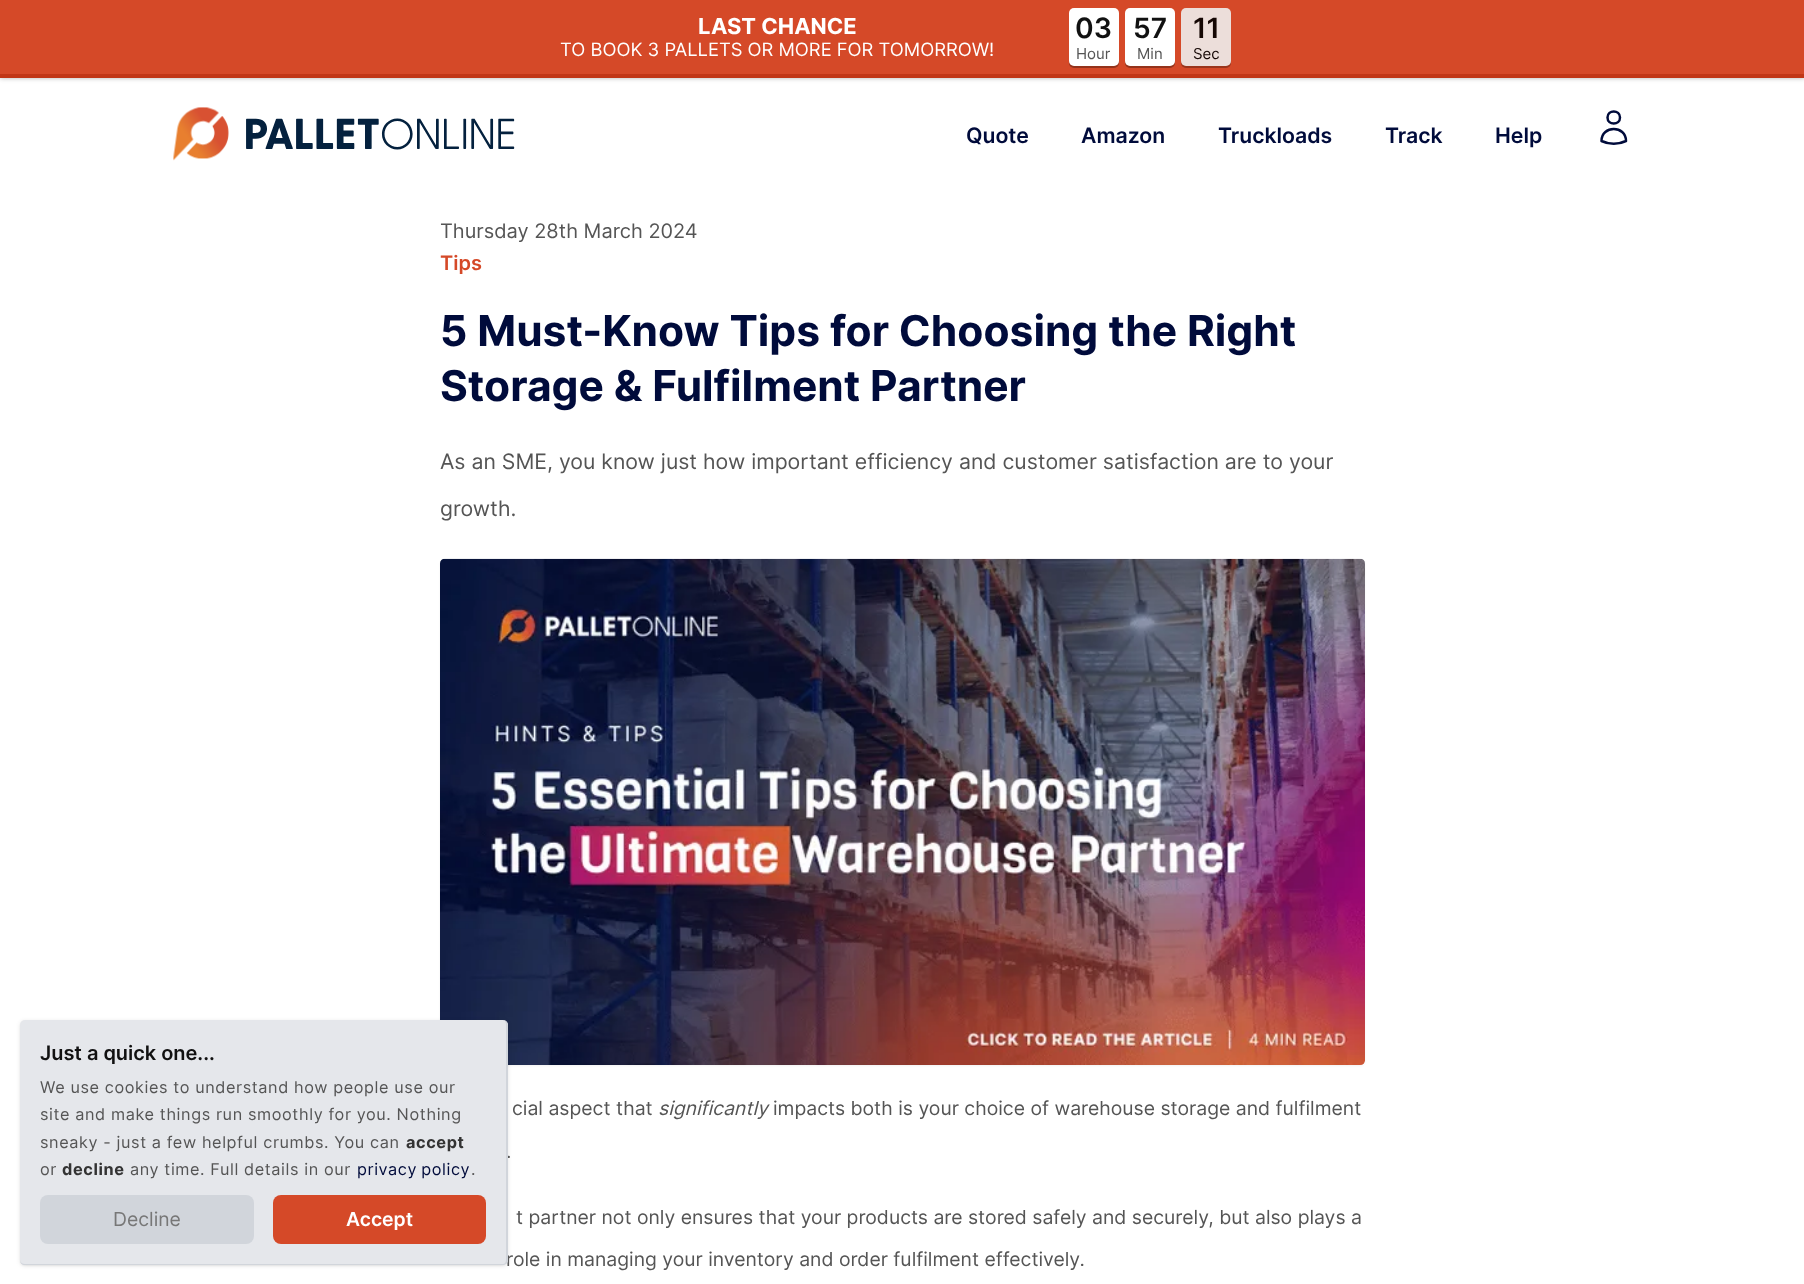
async function draw(canvas) {
	canvas.width = 1804;
	canvas.height = 1284;
	const c = canvas.getContext('2d');
	c.miterLimit = 4;
	c.fontKerning = 'normal';
	async function loadImage(src) {
		const img = new Image();
		img.src = src;
		await img.decode();
		return img;
	}

	c.fillStyle = '#fff';
	c.fillRect(0, 0, 1804, 1284);
	c.fillStyle = '#0000004d';
	c.filter = 'blur(2.5px)';
	c.beginPath();
	c.rect(0, 0, 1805, 78);
	c.fill();
	c.filter = 'none';
	c.fillStyle = '#d54928';
	c.fillRect(0, 0, 1804, 74);
	c.fillStyle = '#c13616';
	c.fillRect(0, 74, 1804, 4);
	c.font = 'bold 22px Inter';
	c.fillStyle = '#fff';
	c.fillText('LAST CHANCE', 698, 34);
	c.font = '18.4px Inter';
	c.fillText('TO BOOK 3 PALLETS OR MORE FOR TOMORROW!', 560, 56);
	c.beginPath();
	c.roundRect(1069, 8, 50, 36, [5, 5, 0, 0]);
	c.fill();
	c.font = '600 28px Inter';
	c.fillStyle = '#111';
	c.fillText('03', 1075, 38);
	c.fillStyle = '#fff';
	c.beginPath();
	c.roundRect(1125, 8, 50, 36, [5, 5, 0, 0]);
	c.fill();
	c.fillStyle = '#111';
	c.fillText('57', 1133, 38);
	c.fillStyle = '#ecdeda';
	c.beginPath();
	c.roundRect(1181, 8, 50, 36, [5, 5, 0, 0]);
	c.fill();
	c.fillStyle = '#150704';
	c.fillText('11', 1193, 38);
	c.fillStyle = '#0000004d';
	c.filter = 'blur(0.5px)';
	c.beginPath();
	c.roundRect(1069, 45, 50, 23, 5);
	c.fill();
	c.filter = 'none';
	c.fillStyle = '#fff';
	c.beginPath();
	c.roundRect(1069, 44, 50, 22, [0, 0, 5, 5]);
	c.fill();
	c.font = '15px Inter';
	c.fillStyle = '#555';
	c.fillText('Hour', 1076, 59);
	c.fillStyle = '#0000004d';
	c.filter = 'blur(0.5px)';
	c.beginPath();
	c.roundRect(1125, 45, 50, 23, 5);
	c.fill();
	c.filter = 'none';
	c.fillStyle = '#fff';
	c.beginPath();
	c.roundRect(1125, 44, 50, 22, [0, 0, 5, 5]);
	c.fill();
	c.fillStyle = '#555';
	c.fillText('Min', 1137, 59);
	c.fillStyle = '#1507044d';
	c.filter = 'blur(0.5px)';
	c.beginPath();
	c.roundRect(1181, 45, 50, 23, 5);
	c.fill();
	c.filter = 'none';
	c.fillStyle = '#ecdeda';
	c.beginPath();
	c.roundRect(1181, 44, 50, 22, [0, 0, 5, 5]);
	c.fill();
	c.fillStyle = '#150704';
	c.fillText('Sec', 1193, 59);
	c.drawImage(await loadImage('img1.png'), 173, 107, 342, 54);
	c.font = '600 21.25px Inter';
	c.fillStyle = '#000b3b';
	for (const [text, x, y] of [
		['Quote', 966, 143],
		['Amazon', 1081, 143],
		['Truckloads', 1218, 143],
		['Track', 1385, 143],
		['Help', 1495, 143],
	]) {
		c.fillText(text, x, y);
	}
	c.beginPath();
	c.moveTo(1620, 117.5);
	c.bezierCurveTo(1620, 125.5, 1607.5, 125.5, 1607.5, 117.5);
	c.bezierCurveTo(1607.5, 109.5, 1620, 109.5, 1620, 117.5);
	c.closePath();
	c.moveTo(1601.5, 141);
	c.bezierCurveTo(1601.5, 125, 1626, 125, 1626, 141);
	c.bezierCurveTo(1618.5, 144.5, 1609, 144.5, 1601.5, 141);
	c.closePath();
	c.strokeStyle = '#000b3b';
	c.lineWidth = 2.5;
	c.lineCap = 'round';
	c.lineJoin = 'round';
	c.stroke();
	c.fillStyle = '#0000000d';
	c.filter = 'blur(1px)';
	c.beginPath();
	c.roundRect(440, 560, 925, 506, 5);
	c.fill();
	c.filter = 'none';
	c.drawImage(await loadImage('img2.png'), 440, 558, 925, 507);
	c.fillStyle = '#0000001a';
	c.filter = 'blur(1px)';
	c.beginPath();
	c.roundRect(21, 1023, 485, 242, 4);
	c.fill();
	c.filter = 'none';
	c.filter = 'blur(2px)';
	c.beginPath();
	c.roundRect(20, 1021, 488, 245, 5);
	c.fill();
	c.filter = 'none';
	c.font = '19.4px Inter';
	c.fillStyle = '#555';
	c.fillText('.', 506, 1158);
	c.fillText('role in managing your inventory and order fulfilment effectively.', 506, 1266);
	c.fillStyle = '#e5e7eb';
	c.beginPath();
	c.roundRect(20, 1020, 488, 245, 5);
	c.fill();
	c.fillStyle = '#d1d5db';
	c.beginPath();
	c.moveTo(25, 1020);
	c.lineTo(503, 1020);
	c.bezierCurveTo(505, 1020, 508, 1022, 508, 1025);
	c.lineTo(508, 1260);
	c.bezierCurveTo(508, 1263, 505, 1265, 503, 1265);
	c.lineTo(25, 1265);
	c.bezierCurveTo(22, 1265, 20, 1263, 20, 1260);
	c.lineTo(20, 1025);
	c.bezierCurveTo(20, 1022, 22, 1020, 25, 1020);
	c.closePath();
	c.moveTo(25, 1020);
	c.lineTo(503, 1020);
	c.bezierCurveTo(505, 1020, 506, 1022, 506, 1025);
	c.lineTo(506, 1260);
	c.bezierCurveTo(506, 1262, 505, 1264, 503, 1264);
	c.lineTo(25, 1264);
	c.bezierCurveTo(22, 1264, 20, 1262, 20, 1260);
	c.lineTo(20, 1025);
	c.bezierCurveTo(20, 1022, 22, 1020, 25, 1020);
	c.closePath();
	c.fill('evenodd');
	c.font = '600 20px Inter';
	c.fillStyle = '#111';
	c.fillText('Just a quick one...', 40, 1060);
	c.letterSpacing = '0.6px';
	c.font = '16.25px Inter';
	c.fillStyle = '#555';
	for (const [text, x, y] of [
		['We use cookies to understand how people use our', 40, 1093],
		['site and make things run smoothly for you. Nothing', 40, 1120],
		['sneaky - just a few helpful crumbs. You can', 40, 1148],
	]) {
		c.fillText(text, x, y);
	}
	c.font = 'bold 16.25px Inter';
	c.fillStyle = '#333';
	c.fillText('accept', 406, 1148);
	c.font = '16.25px Inter';
	c.fillStyle = '#555';
	c.fillText('or', 40, 1175);
	c.font = 'bold 16.25px Inter';
	c.fillStyle = '#333';
	c.fillText('decline', 62, 1175);
	c.font = '16.25px Inter';
	c.fillStyle = '#555';
	c.fillText('any time. Full details in our', 130, 1175);
	c.wordSpacing = '-1px';
	c.fillStyle = '#000b3b';
	c.fillText('privacy policy', 357, 1175);
	c.wordSpacing = '0px';
	c.fillStyle = '#555';
	c.fillText('.', 471, 1175);
	c.fillStyle = '#d1d5db';
	c.beginPath();
	c.roundRect(40, 1195, 214, 49, 8);
	c.fill();
	c.letterSpacing = '0px';
	c.font = '19.4px Inter';
	c.fillStyle = '#777';
	c.fillText('Decline', 113, 1226);
	c.fillStyle = '#d54928';
	c.beginPath();
	c.roundRect(273, 1195, 213, 49, 8);
	c.fill();
	c.font = '600 19.4px Inter';
	c.fillStyle = '#fff';
	c.fillText('Accept', 346, 1226);
	c.font = '20px Inter';
	c.fillStyle = '#555';
	c.fillText('Thursday 28th March 2024', 440, 238);
	c.font = '600 20px Inter';
	c.fillStyle = '#d54928';
	c.fillText('Tips', 440, 270);
	c.font = 'bold 42.5px Inter';
	c.fillStyle = '#000b3b';
	c.fillText('5 Must-Know Tips for Choosing the Right', 440, 346);
	c.fillText('Storage & Fulfilment Partner', 440, 401);
	c.font = '21.25px Inter';
	c.fillStyle = '#555';
	c.fillText('As an SME, you know just how important efficiency and customer satisfaction are to your', 440, 469);
	c.fillText('growth.', 440, 516);
	c.font = '19.4px Inter';
	c.fillText('cial aspect that', 512, 1115);
	c.font = 'italic 19.4px Inter';
	c.fillText('significantly', 658, 1115);
	c.font = '19.4px Inter';
	c.fillText('impacts both is your choice of warehouse storage and fulfilment', 773, 1115);
	c.fillText('t partner not only ensures that your products are stored safely and securely, but also plays a', 516, 1224);
}

draw(document.querySelector('canvas'));
